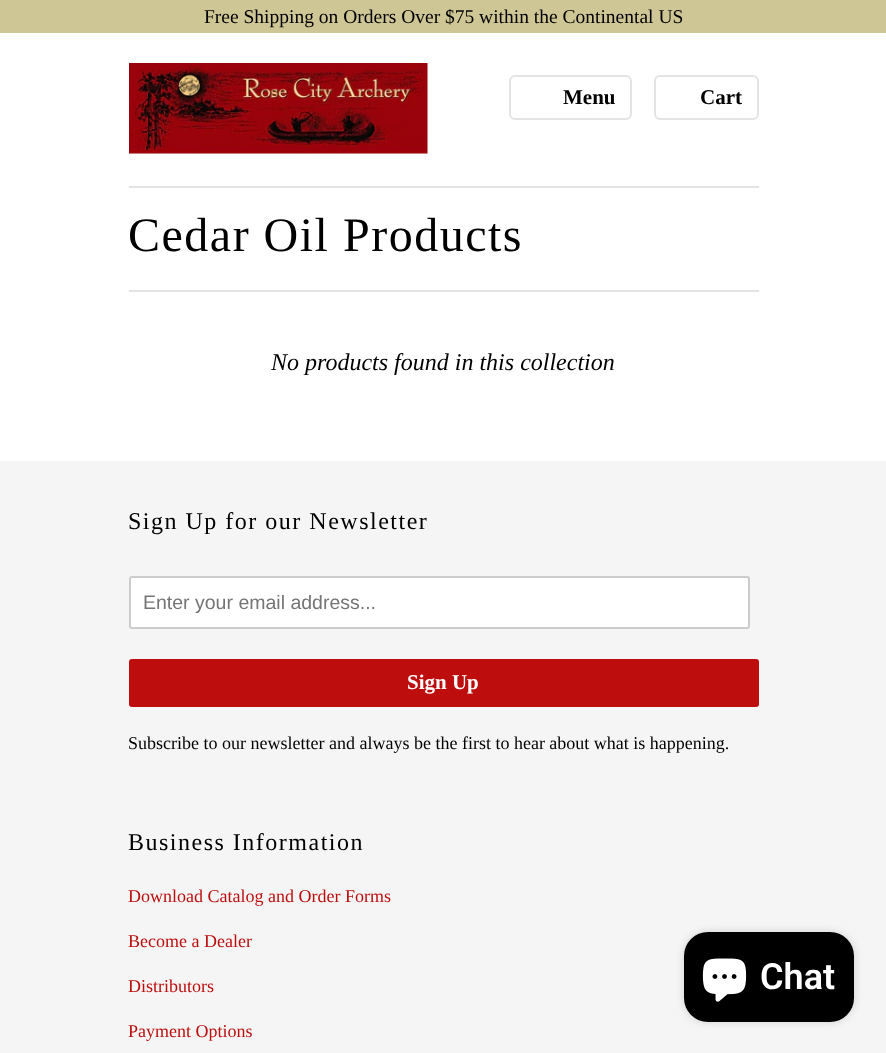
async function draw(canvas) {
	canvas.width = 886;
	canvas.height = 1053;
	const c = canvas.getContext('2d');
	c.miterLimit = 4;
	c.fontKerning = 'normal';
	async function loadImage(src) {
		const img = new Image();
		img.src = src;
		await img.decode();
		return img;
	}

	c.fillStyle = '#fff';
	c.fillRect(0, 0, 886, 1053);
	c.fillStyle = '#cfc695';
	c.fillRect(0, 0, 886, 33);
	c.font = '19.5px Liberation Serif';
	c.fillStyle = '#000';
	c.fillText('Free Shipping on Orders Over $75 within the Continental US', 204, 23);
	c.fillStyle = '#e4e4e4';
	c.fillRect(129, 186, 630, 2);
	c.drawImage(await loadImage('img1.png'), 129, 63, 299, 91);
	c.beginPath();
	c.roundRect(510, 76, 121, 43, 5);
	c.strokeStyle = '#e4e4e4';
	c.lineWidth = 2;
	c.stroke();
	c.font = 'bold 21px Liberation Serif';
	c.fillStyle = '#000';
	c.fillText('Menu', 563, 104);
	c.beginPath();
	c.roundRect(655, 76, 103, 43, 5);
	c.stroke();
	c.fillText('Cart', 700, 104);
	c.fillStyle = '#e4e4e4';
	c.fillRect(129, 290, 630, 2);
	c.letterSpacing = '1.5px';
	c.font = '48px Liberation Serif';
	c.fillStyle = '#000';
	c.fillText('Cedar Oil Products', 128, 251);
	c.letterSpacing = '0px';
	c.font = 'italic 24px Liberation Serif';
	c.fillText('No products found in this collection', 271, 370);
	c.fillStyle = '#f5f5f5';
	c.fillRect(0, 461, 886, 592);
	c.letterSpacing = '1.5px';
	c.font = '24px Liberation Serif';
	c.fillStyle = '#000';
	c.fillText('Sign Up for our Newsletter', 128, 529);
	c.fillStyle = '#fff';
	c.beginPath();
	c.roundRect(130, 577, 619, 51, 2);
	c.fill();
	c.strokeStyle = '#ccc';
	c.stroke();
	c.letterSpacing = '0px';
	c.font = '19.5px Liberation Sans';
	c.fillStyle = '#757575';
	c.fillText('Enter your email address...', 143, 609);
	c.fillStyle = '#bd0d0d';
	c.beginPath();
	c.roundRect(129, 659, 630, 48, 3);
	c.fill();
	c.font = 'bold 21px Liberation Serif';
	c.fillStyle = '#fff';
	c.fillText('Sign Up', 407, 689);
	c.font = '18px Liberation Serif';
	c.fillStyle = '#000';
	c.fillText('Subscribe to our newsletter and always be the first to hear about what is happening.', 128, 749);
	c.letterSpacing = '1.5px';
	c.font = '24px Liberation Serif';
	c.fillText('Business Information', 128, 850);
	c.letterSpacing = '0px';
	c.font = '18px Liberation Serif';
	c.fillStyle = '#bd0d0d';
	for (const [text, x, y] of [
		['Download Catalog and Order Forms', 128, 902],
		['Become a Dealer', 128, 947],
		['Distributors', 128, 992],
		['Payment Options', 128, 1037],
	]) {
		c.fillText(text, x, y);
	}
	c.fillStyle = '#00000026';
	c.filter = 'blur(4px)';
	c.beginPath();
	c.roundRect(684, 932, 170, 90, 24);
	c.fill();
	c.filter = 'none';
	c.fillStyle = '#000';
	c.beginPath();
	c.roundRect(684, 932, 170, 90, 24);
	c.fill();
	c.drawImage(await loadImage('img2.png'), 702, 958, 45, 44);
	c.font = '600 36px Roboto';
	c.fillStyle = '#fff';
	c.fillText('Chat', 760, 989);
}

draw(document.querySelector('canvas'));
